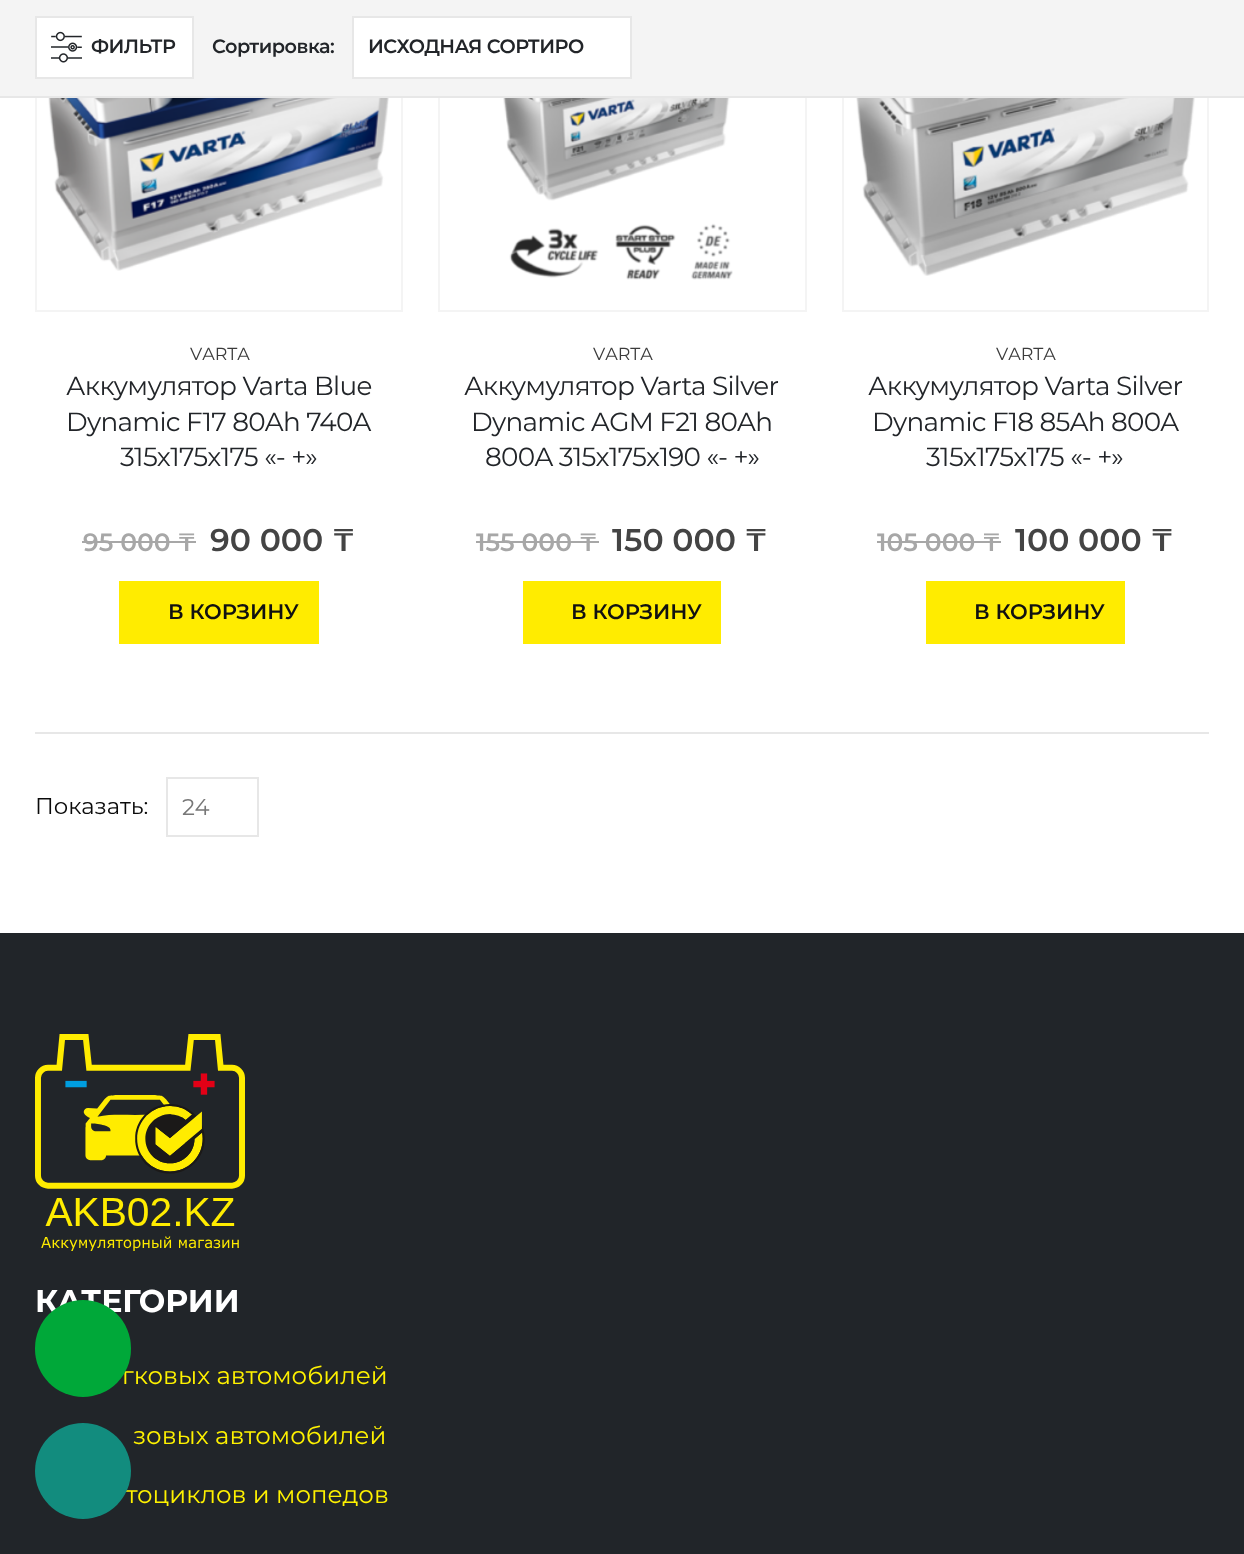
async function draw(canvas) {
	canvas.width = 1244;
	canvas.height = 1554;
	const c = canvas.getContext('2d');
	c.miterLimit = 4;
	c.fontKerning = 'normal';
	async function loadImage(src) {
		const img = new Image();
		img.src = src;
		await img.decode();
		return img;
	}

	c.fillStyle = '#fff';
	c.fillRect(0, 0, 1244, 1554);
	c.strokeStyle = '#f4f4f4';
	c.lineWidth = 2;
	c.strokeRect(36, -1, 366, 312);
	c.strokeRect(439, -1, 367, 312);
	c.strokeRect(843, -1, 365, 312);
	c.fillStyle = '#f4f4f4';
	c.fillRect(0, 0, 1244, 96);
	c.fillStyle = '#e7e7e7';
	c.fillRect(0, 96, 1244, 2);
	c.fillStyle = '#fff';
	c.beginPath();
	c.rect(36, 17, 157, 61);
	c.fill();
	c.strokeStyle = '#e7e7e7';
	c.stroke();
	c.drawImage(await loadImage('img1.png'), 51, 31, 31, 32);
	c.letterSpacing = '-0.5px';
	c.font = '600 19.25px Montserrat';
	c.fillStyle = '#222529';
	c.fillText('ФИЛЬТР', 91, 53);
	c.fillText('Сортировка:', 212, 53);
	c.fillStyle = '#fff';
	c.beginPath();
	c.rect(353, 17, 278, 61);
	c.fill();
	c.stroke();
	c.fillStyle = '#222529';
	c.fillText('ИСХОДНАЯ СОРТИРО', 368, 53);
	c.drawImage(await loadImage('img2.png'), 48, 98, 341, 173);
	c.letterSpacing = '0px';
	c.font = '17.5px Montserrat';
	c.fillStyle = '#3b3b3b';
	c.fillText('VARTA', 190, 360);
	c.letterSpacing = '-0.7px';
	c.font = '26.25px Montserrat';
	c.fillStyle = '#222529';
	for (const [text, x, y] of [
		['Аккумулятор Varta Blue', 66, 395],
		['Dynamic F17 80Ah 740A', 66, 431],
		['315x175x175 «- +»', 120, 466],
	]) {
		c.fillText(text, x, y);
	}
	c.letterSpacing = '0px';
	c.font = '600 25px Montserrat';
	c.fillStyle = '#a7a7a7';
	c.fillText('95 000 ₸', 83, 551);
	c.fillRect(82, 541, 114, 2);
	c.font = '600 31.5px Montserrat';
	c.fillStyle = '#444';
	c.fillText('90 000 ₸', 210, 551);
	c.fillStyle = '#ffec00';
	c.fillRect(119, 581, 200, 63);
	c.font = '600 21px Montserrat';
	c.fillStyle = '#111';
	c.fillText('В КОРЗИНУ', 168, 619);
	c.drawImage(await loadImage('img3.png'), 503, 98, 230, 182);
	c.font = '17.5px Montserrat';
	c.fillStyle = '#3b3b3b';
	c.fillText('VARTA', 593, 360);
	c.letterSpacing = '-0.7px';
	c.font = '26.25px Montserrat';
	c.fillStyle = '#222529';
	for (const [text, x, y] of [
		['Аккумулятор Varta Silver', 464, 395],
		['Dynamic AGM F21 80Ah', 471, 431],
		['800A 315x175x190 «- +»', 485, 466],
	]) {
		c.fillText(text, x, y);
	}
	c.letterSpacing = '0px';
	c.font = '600 25px Montserrat';
	c.fillStyle = '#a7a7a7';
	c.fillText('155 000 ₸', 476, 551);
	c.fillRect(476, 541, 123, 2);
	c.font = '600 31.5px Montserrat';
	c.fillStyle = '#444';
	c.fillText('150 000 ₸', 612, 551);
	c.fillStyle = '#ffec00';
	c.fillRect(523, 581, 198, 63);
	c.font = '600 21px Montserrat';
	c.fillStyle = '#111';
	c.fillText('В КОРЗИНУ', 571, 619);
	c.drawImage(await loadImage('img4.png'), 855, 98, 341, 178);
	c.font = '17.5px Montserrat';
	c.fillStyle = '#3b3b3b';
	c.fillText('VARTA', 996, 360);
	c.letterSpacing = '-0.7px';
	c.font = '26.25px Montserrat';
	c.fillStyle = '#222529';
	for (const [text, x, y] of [
		['Аккумулятор Varta Silver', 868, 395],
		['Dynamic F18 85Ah 800A', 872, 431],
		['315x175x175 «- +»', 926, 466],
	]) {
		c.fillText(text, x, y);
	}
	c.letterSpacing = '0px';
	c.font = '600 25px Montserrat';
	c.fillStyle = '#a7a7a7';
	c.fillText('105 000 ₸', 877, 551);
	c.fillRect(877, 541, 124, 2);
	c.font = '600 31.5px Montserrat';
	c.fillStyle = '#444';
	c.fillText('100 000 ₸', 1015, 551);
	c.fillStyle = '#ffec00';
	c.fillRect(926, 581, 199, 63);
	c.font = '600 21px Montserrat';
	c.fillStyle = '#111';
	c.fillText('В КОРЗИНУ', 974, 619);
	c.fillStyle = '#e7e7e7';
	c.fillRect(35, 732, 1174, 2);
	c.font = '22.75px Montserrat';
	c.fillStyle = '#0a0a0a';
	c.fillText('Показать:', 35, 814);
	c.strokeRect(167, 778, 91, 58);
	c.fillStyle = '#777';
	c.fillText('24', 182, 815);
	c.fillStyle = '#212529';
	c.fillRect(0, 933, 1244, 621);
	c.drawImage(await loadImage('img5.png'), 35, 1034, 210, 217);
	c.font = 'bold 31.5px Montserrat';
	c.fillStyle = '#fff';
	c.fillText('КАТЕГОРИИ', 35, 1312);
	c.font = '24.5px Montserrat';
	c.fillStyle = '#fff200';
	for (const [text, x, y] of [
		['гковых автомобилей', 122, 1384],
		['зовых автомобилей', 133, 1444],
		['тоциклов и мопедов', 126, 1503],
	]) {
		c.fillText(text, x, y);
	}
	c.fillStyle = '#00a839';
	c.beginPath();
	c.roundRect(35, 1300, 96, 97, 48);
	c.fill();
	c.fillStyle = '#128c7e';
	c.beginPath();
	c.arc(83, 1471, 48, 0, 2 * Math.PI);
	c.fill();
}

draw(document.querySelector('canvas'));
